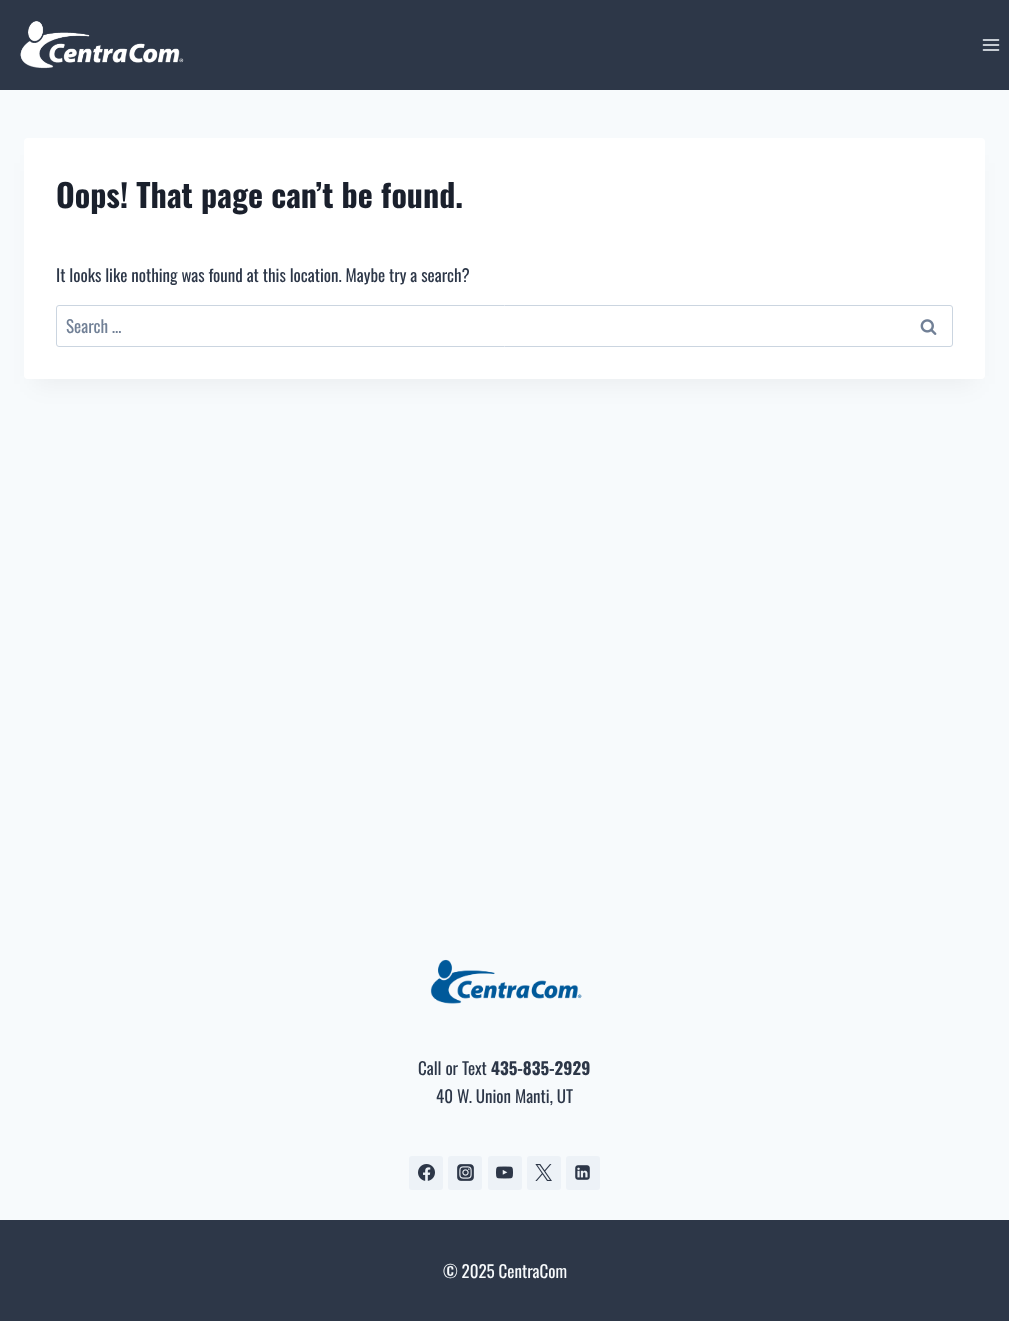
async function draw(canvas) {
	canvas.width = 1009;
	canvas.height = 1321;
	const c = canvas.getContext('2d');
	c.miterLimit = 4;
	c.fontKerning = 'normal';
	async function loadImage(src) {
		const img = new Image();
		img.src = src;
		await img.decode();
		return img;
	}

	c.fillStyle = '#f7fafc';
	c.fillRect(0, 0, 1009, 1321);
	c.fillStyle = '#2d3748';
	c.fillRect(0, 0, 1009, 90);
	c.drawImage(await loadImage('img1.png'), 20, 21, 164, 48);
	c.drawImage(await loadImage('img2.png'), 982, 39, 18, 12);
	c.fillStyle = '#0000000d';
	c.filter = 'blur(12.5px)';
	c.beginPath();
	c.rect(34, 163, 941, 221);
	c.fill();
	c.filter = 'none';
	c.fillStyle = '#fff';
	c.beginPath();
	c.roundRect(24, 138, 961, 241, 4);
	c.fill();
	c.font = 'bold 32px Oswald';
	c.fillStyle = '#1a202c';
	c.fillText('Oops! That page can’t be found.', 56, 208);
	c.font = '17px Oswald';
	c.fillStyle = '#2d3748';
	c.fillText('It looks like nothing was found at this location. Maybe try a search?', 56, 282);
	c.beginPath();
	c.roundRect(56.5, 305.5, 896, 41, 2.5);
	c.strokeStyle = '#cbd5e0';
	c.stroke();
	c.fillStyle = '#718096';
	c.fillText('Search …', 66, 333);
	c.drawImage(await loadImage('img3.png'), 920, 319, 17, 16);
	c.drawImage(await loadImage('img4.png'), 430, 959, 152, 45);
	c.fillStyle = '#2d3748';
	c.fillText('Call or Text', 418, 1075);
	c.font = 'bold 17px Oswald';
	c.fillText('435-835-2929', 491, 1075);
	c.font = '17px Oswald';
	c.fillText('40 W. Union Manti, UT', 436, 1103);
	c.fillStyle = '#edf2f7';
	c.beginPath();
	c.roundRect(409, 1156, 34, 34, 3);
	c.fill();
	c.drawImage(await loadImage('img5.png'), 418, 1164, 17, 17);
	c.beginPath();
	c.roundRect(448, 1156, 34, 34, 3);
	c.fill();
	c.drawImage(await loadImage('img6.png'), 457, 1164, 17, 17);
	c.beginPath();
	c.roundRect(488, 1156, 34, 34, 3);
	c.fill();
	c.drawImage(await loadImage('img7.png'), 496, 1166, 17, 13);
	c.beginPath();
	c.roundRect(527, 1156, 34, 34, 3);
	c.fill();
	c.drawImage(await loadImage('img8.png'), 535, 1164, 17, 17);
	c.beginPath();
	c.roundRect(566, 1156, 34, 34, 3);
	c.fill();
	c.drawImage(await loadImage('img9.png'), 575, 1165, 15, 15);
	c.fillStyle = '#2d3748';
	c.fillRect(0, 1220, 1009, 101);
	c.fillStyle = '#f7fafc';
	c.fillText('© 2025 CentraCom', 443, 1278);
}

draw(document.querySelector('canvas'));
